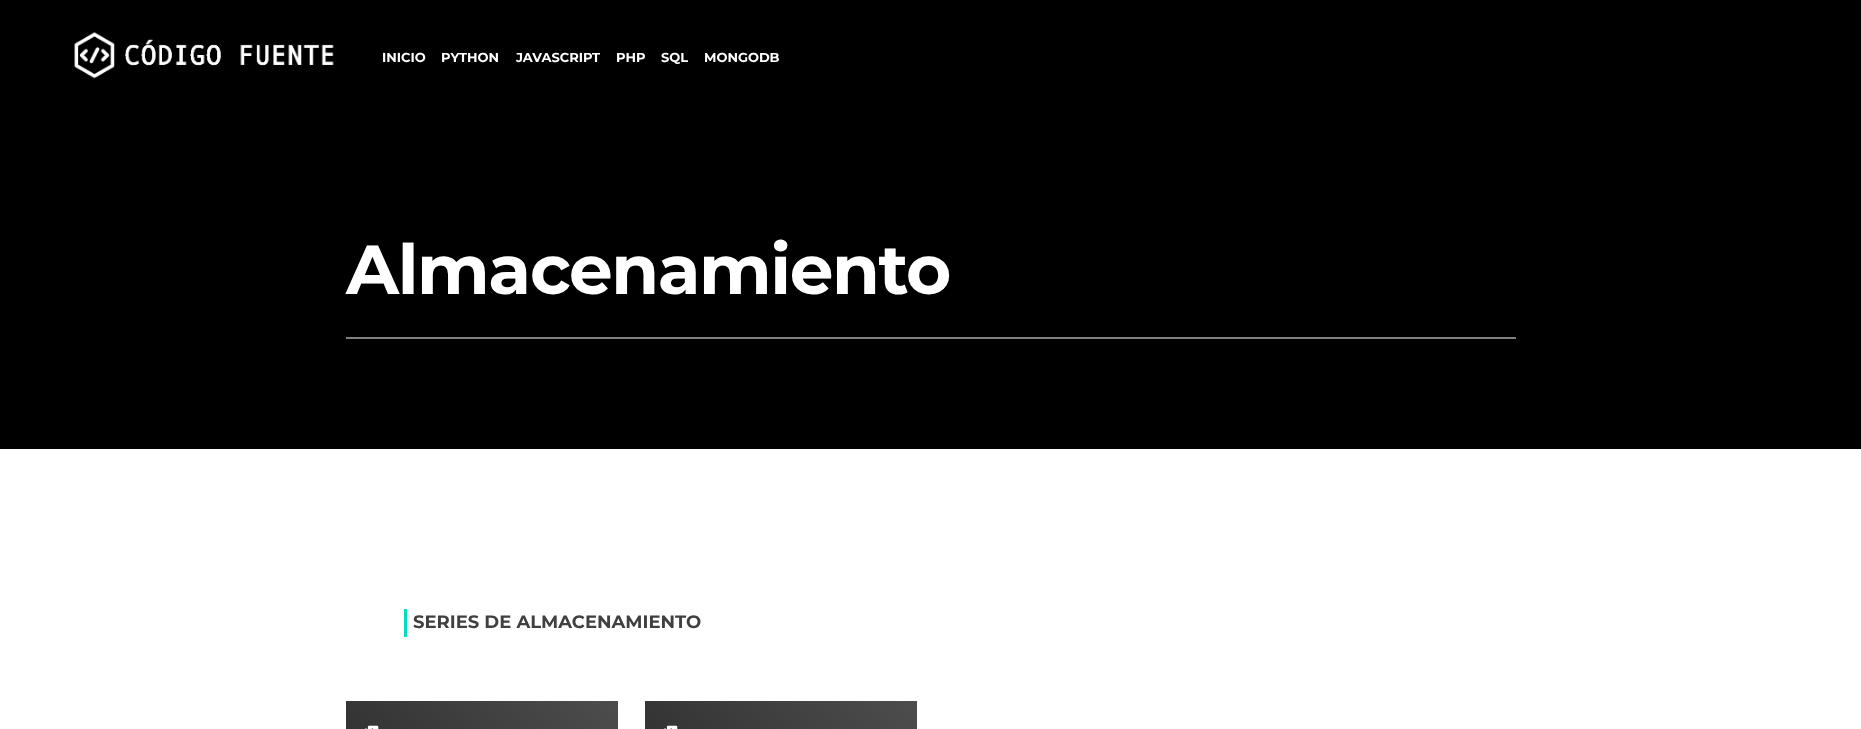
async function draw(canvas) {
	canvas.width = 1861;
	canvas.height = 729;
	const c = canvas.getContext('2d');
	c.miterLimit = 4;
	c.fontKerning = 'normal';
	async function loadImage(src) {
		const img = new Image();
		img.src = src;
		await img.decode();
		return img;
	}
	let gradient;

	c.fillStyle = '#fff';
	c.fillRect(0, 0, 1861, 729);
	c.fillStyle = '#000';
	c.fillRect(0, 0, 1861, 449);
	c.drawImage(await loadImage('img1.png'), 74, 32, 260, 47);
	c.font = '100 13px Montserrat';
	c.fillStyle = '#fff';
	for (const [text, x, y] of [
		['INICIO', 382, 62],
		['PYTHON', 441, 62],
		['JAVASCRIPT', 516, 62],
		['PHP', 616, 62],
		['SQL', 661, 62],
		['MONGODB', 704, 62],
	]) {
		c.fillText(text, x, y);
	}
	c.letterSpacing = '-1.4px';
	c.font = '100 69.25px Montserrat';
	c.fillText('Almacenamiento', 346, 294);
	c.fillStyle = '#808080';
	c.fillRect(346, 337, 1170, 2);
	c.fillStyle = '#01dfba';
	c.fillRect(404, 609, 3, 28);
	c.letterSpacing = '0px';
	c.font = '100 18px Montserrat';
	c.fillStyle = '#404040';
	c.fillText('SERIES DE ALMACENAMIENTO', 413, 628);
	gradient = c.createLinearGradient(313, 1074, 652, 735);
	gradient.addColorStop(0, '#131313');
	gradient.addColorStop(1, '#4d4d4d');
	c.fillStyle = gradient;
	c.fillRect(346, 701, 272, 28);
	c.drawImage(await loadImage('img2.png'), 365, 725, 14, 4);
	gradient = c.createLinearGradient(612, 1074, 951, 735);
	gradient.addColorStop(0, '#131313');
	gradient.addColorStop(1, '#4d4d4d');
	c.fillStyle = gradient;
	c.fillRect(645, 701, 272, 28);
	c.drawImage(await loadImage('img2.png'), 664, 725, 14, 4);
}

draw(document.querySelector('canvas'));
